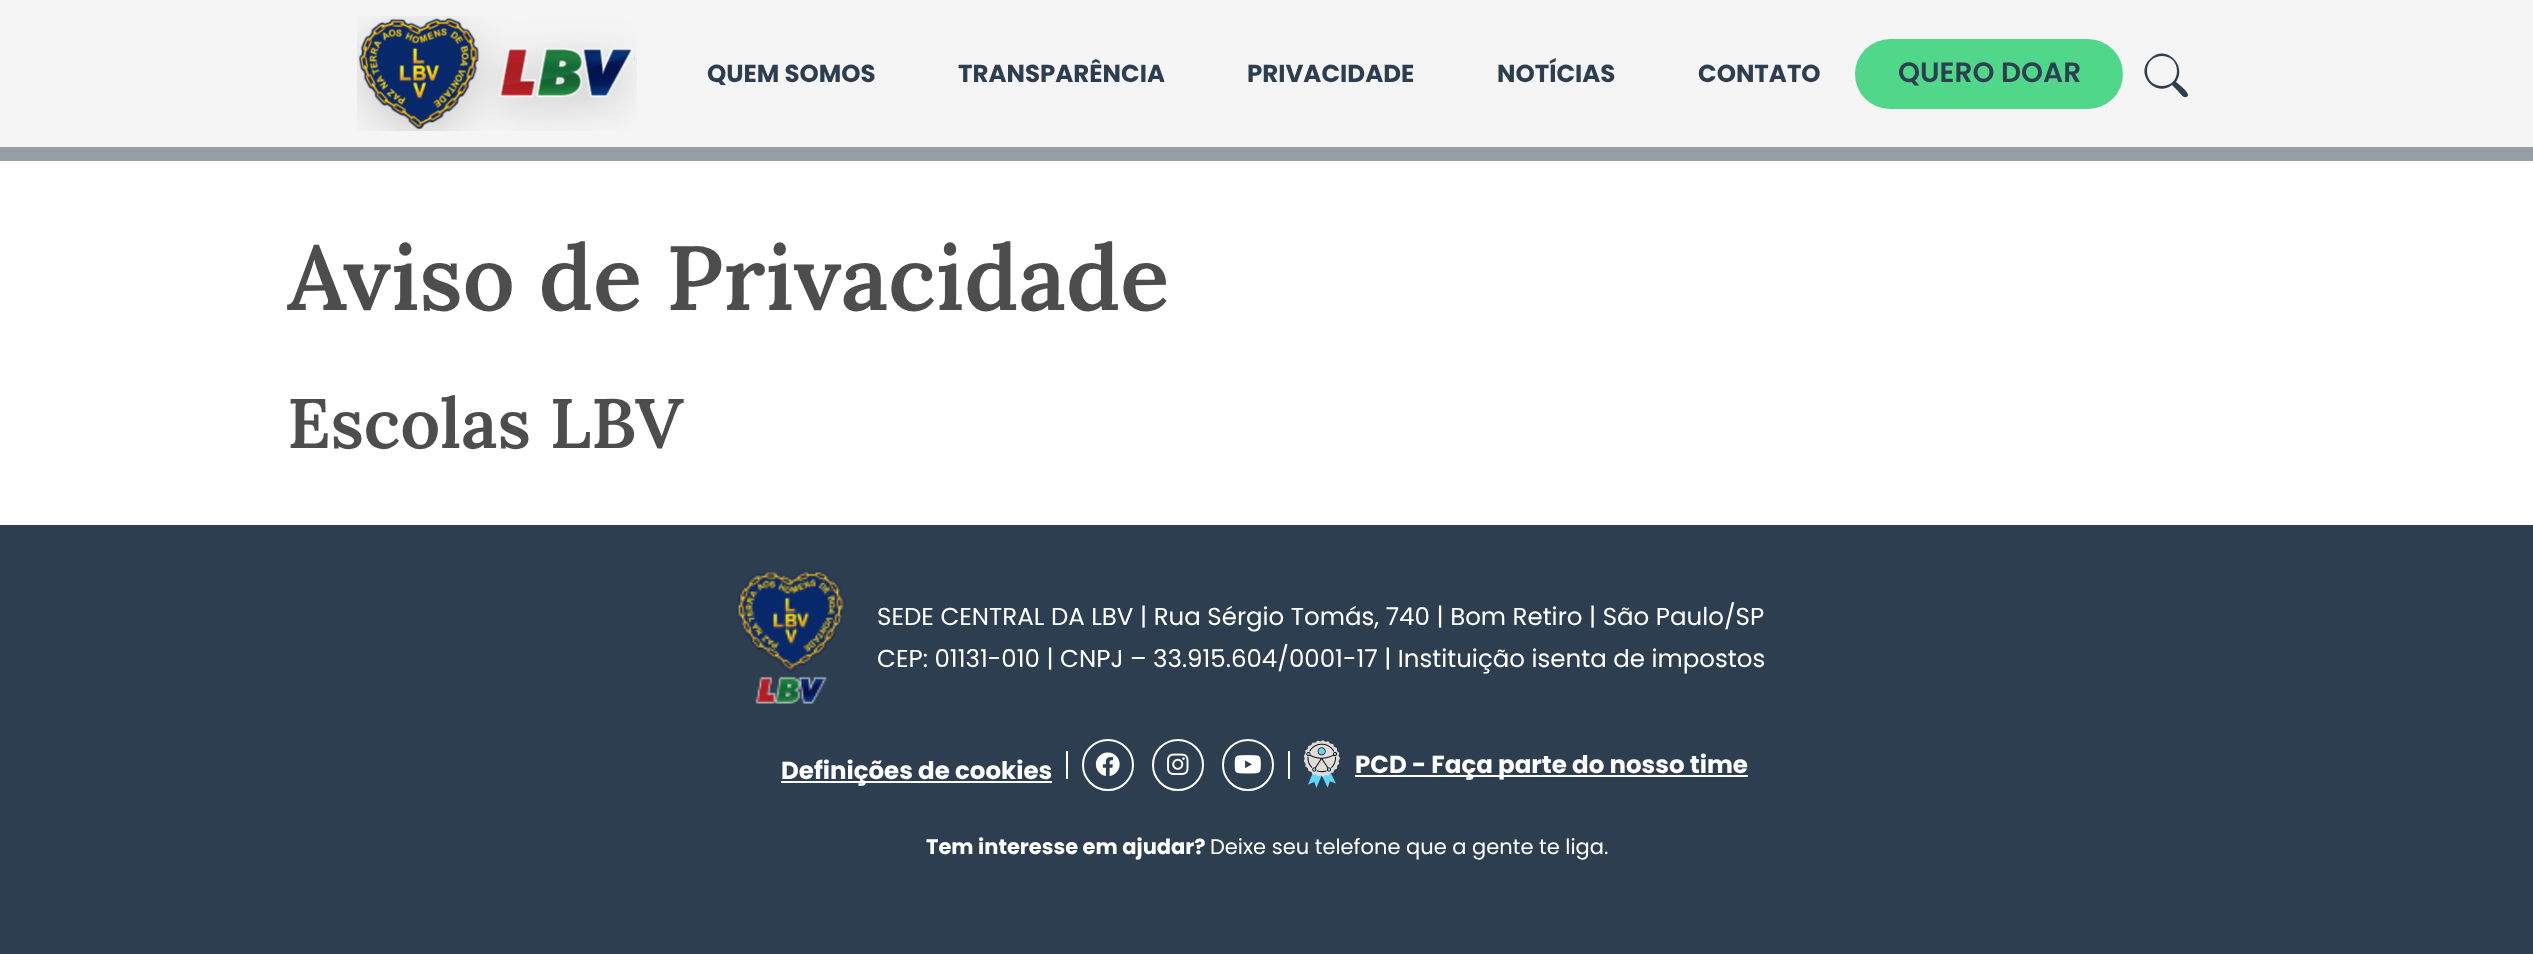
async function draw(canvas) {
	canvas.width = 2533;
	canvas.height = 954;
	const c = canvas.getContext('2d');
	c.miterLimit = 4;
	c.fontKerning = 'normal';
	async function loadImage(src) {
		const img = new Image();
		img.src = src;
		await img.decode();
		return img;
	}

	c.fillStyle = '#fff';
	c.fillRect(0, 0, 2533, 954);
	c.fillStyle = '#f5f5f5';
	c.fillRect(0, 0, 2533, 147);
	c.drawImage(await loadImage('img1.png'), 357, 16, 280, 115);
	c.font = 'bold 24.5px Poppins';
	c.fillStyle = '#2d3e50';
	for (const [text, x, y] of [
		['QUEM SOMOS', 707, 82],
		['TRANSPARÊNCIA', 958, 82],
		['PRIVACIDADE', 1247, 82],
		['NOTÍCIAS', 1497, 82],
		['CONTATO', 1698, 82],
	]) {
		c.fillText(text, x, y);
	}
	c.fillStyle = '#50d78a';
	c.beginPath();
	c.roundRect(1855, 39, 268, 70, 35);
	c.fill();
	c.font = '600 28px Poppins';
	c.fillStyle = '#2d3e50';
	c.fillText('QUERO DOAR', 1898, 82);
	c.beginPath();
	c.moveTo(2176, 82);
	c.bezierCurveTo(2188, 65, 2165, 43, 2150, 59);
	c.bezierCurveTo(2134, 74, 2156, 98, 2172, 85);
	c.lineTo(2178, 91);
	c.bezierCurveTo(2180, 93, 2183, 98, 2186, 97);
	c.bezierCurveTo(2192, 96, 2183, 88, 2182, 87);
	c.closePath();
	c.moveTo(2177, 71);
	c.bezierCurveTo(2177, 91, 2147, 91, 2147, 71);
	c.bezierCurveTo(2147, 51, 2177, 51, 2177, 71);
	c.closePath();
	c.fill();
	c.fillStyle = '#969fa7';
	c.fillRect(0, 147, 2533, 14);
	c.font = '600 91px Lora';
	c.fillStyle = '#4d4d4d';
	c.fillText('Aviso de Privacidade', 287, 310);
	c.font = '600 70px Lora';
	c.fillText('Escolas LBV', 287, 448);
	c.fillStyle = '#2d3e50';
	c.fillRect(0, 525, 2533, 429);
	c.drawImage(await loadImage('img2.png'), 736, 570, 110, 134);
	c.font = '24.5px Poppins';
	c.fillStyle = '#fff';
	c.fillText('SEDE CENTRAL DA LBV | Rua Sérgio Tomás, 740 | Bom Retiro | São Paulo/SP', 877, 625);
	c.fillText('CEP: 01131-010 | CNPJ – 33.915.604/0001-17 | Instituição isenta de impostos', 877, 667);
	c.fillRect(781, 781, 271, 2);
	c.font = 'bold 24.5px Poppins';
	c.fillText('Definições de cookies', 781, 779);
	c.fillRect(1066, 751, 2, 28);
	c.beginPath();
	c.arc(1108, 765, 25, 0, 2 * Math.PI);
	c.strokeStyle = '#fff';
	c.lineWidth = 2;
	c.stroke();
	c.drawImage(await loadImage('img3.png'), 1095, 752, 25, 24);
	c.beginPath();
	c.arc(1178, 765, 25, 0, 2 * Math.PI);
	c.stroke();
	c.drawImage(await loadImage('img4.png'), 1167, 753, 22, 22);
	c.beginPath();
	c.arc(1248, 765, 25, 0, 2 * Math.PI);
	c.stroke();
	c.drawImage(await loadImage('img5.png'), 1234, 755, 27, 19);
	c.fillRect(1288, 751, 2, 28);
	c.drawImage(await loadImage('img6.png'), 1304, 740, 36, 48);
	c.fillRect(1355, 775, 393, 2);
	c.fillText('PCD - Faça parte do nosso time', 1355, 773);
	c.font = 'bold 21px Poppins';
	c.fillText('Tem interesse em ajudar?', 926, 854);
	c.font = '21px Poppins';
	c.fillText('Deixe seu telefone que a gente te liga.', 1210, 854);
}

draw(document.querySelector('canvas'));
